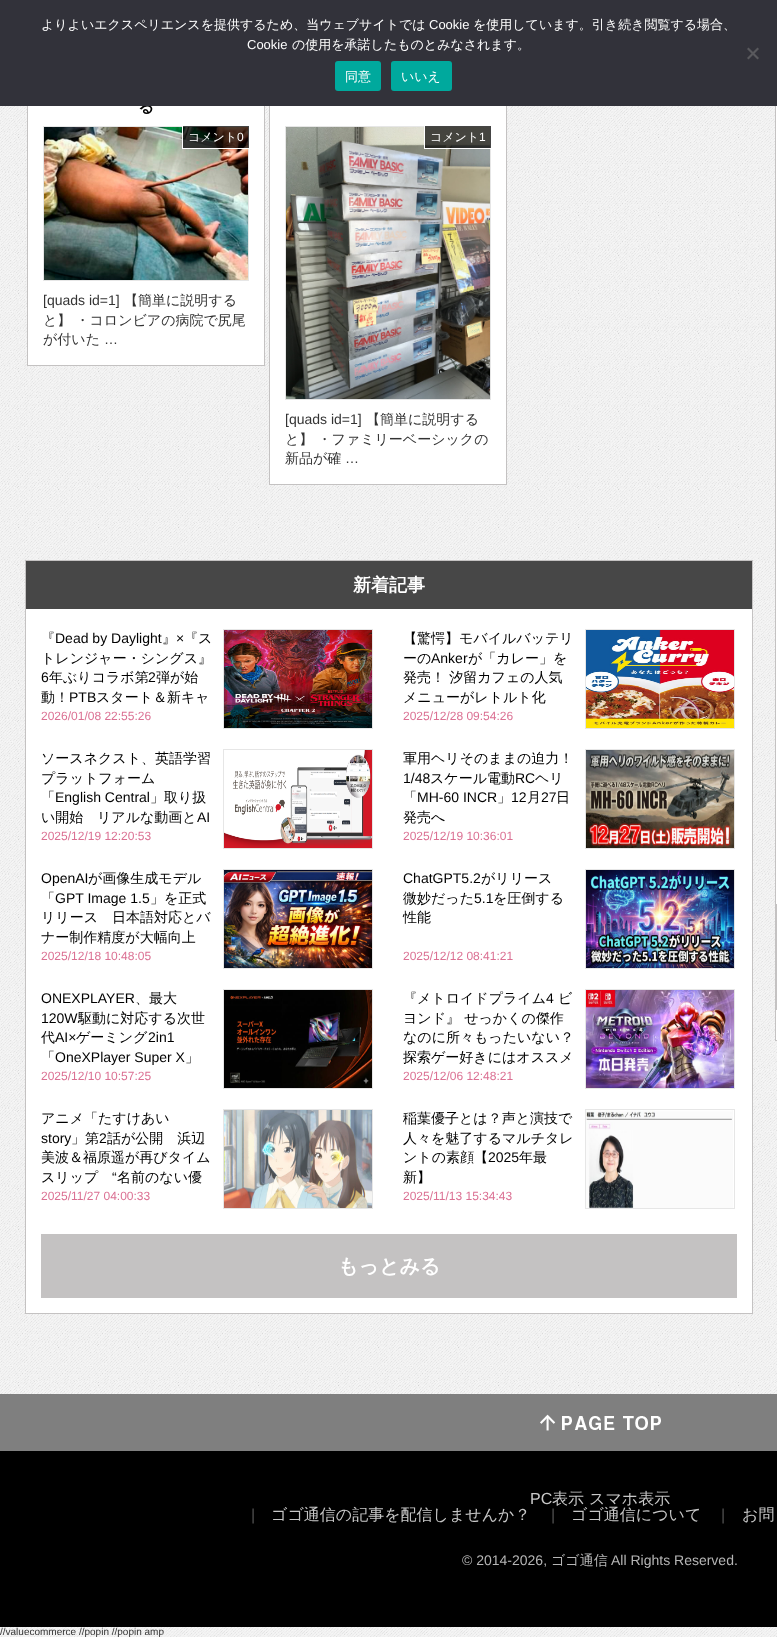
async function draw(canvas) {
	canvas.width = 777;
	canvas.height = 1637;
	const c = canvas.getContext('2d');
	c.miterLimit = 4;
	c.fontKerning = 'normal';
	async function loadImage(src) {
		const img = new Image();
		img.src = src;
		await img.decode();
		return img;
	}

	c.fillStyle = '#fff';
	c.fillRect(0, 0, 777, 1637);
	c.drawImage(await loadImage('img1.png'), 0, 106, 777, 1531);
	c.fillRect(28, 106, 236, 259);
	c.strokeStyle = '#c4c2c2';
	c.strokeRect(27.5, -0.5, 237, 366);
	c.font = 'bold 16px WenQuanYi Zen Hei';
	c.fillStyle = '#000';
	c.fillText('る', 138, 112);
	c.fillStyle = '#fff';
	c.fillRect(270, 106, 236, 378);
	c.strokeRect(269.5, -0.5, 237, 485);
	c.fillRect(776, 106, 1, 935);
	c.strokeRect(775.5, -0.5, 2, 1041);
	c.fillStyle = '#32323a';
	c.fillRect(0, 0, 777, 106);
	c.font = '500 13px WenQuanYi Zen Hei';
	c.fillStyle = '#fff';
	c.fillText('よりよいエクスペリエンスを提供するため、当ウェブサイトでは', 41, 29);
	c.font = '13px Liberation Sans';
	c.fillText('Cookie', 429, 29);
	c.font = '500 13px WenQuanYi Zen Hei';
	c.fillText('を使用しています。引き続き閲覧する場合、', 473, 29);
	c.font = '13px Liberation Sans';
	c.fillText('Cookie', 247, 49);
	c.font = '500 13px WenQuanYi Zen Hei';
	c.fillText('の使用を承諾したものとみなされます。', 292, 49);
	c.fillStyle = '#59595d';
	c.beginPath();
	c.moveTo(757.5, 47.5);
	c.lineTo(759, 49);
	c.lineTo(748.5, 59.5);
	c.lineTo(747, 58);
	c.closePath();
	c.fill();
	c.beginPath();
	c.moveTo(747, 49);
	c.lineTo(748.5, 47.5);
	c.lineTo(759, 58);
	c.lineTo(757.5, 59.5);
	c.closePath();
	c.fill();
	c.fillStyle = '#00a99d';
	c.beginPath();
	c.roundRect(335, 61, 46, 30, 3);
	c.fill();
	c.fillStyle = '#fff';
	c.fillText('同意', 345, 81);
	c.fillStyle = '#00a99d';
	c.beginPath();
	c.roundRect(391, 61, 61, 30, 3);
	c.fill();
	c.fillStyle = '#fff';
	c.fillText('いいえ', 401, 81);
	c.strokeStyle = '#e6e6e6';
	c.strokeRect(43.5, 126.5, 205, 154);
	c.drawImage(await loadImage('img2.png'), 44, 127, 204, 153);
	for (const [x, y, w, h, color] of [
		[183, 126, 66, 22, '#000000b3'],
		[182, 148, 67, 1, '#fff'],
		[182, 126, 1, 23, '#fff'],
	]) {
		c.fillStyle = color;
		c.fillRect(x, y, w, h);
	}
	c.font = '500 12px WenQuanYi Zen Hei';
	c.fillText('コメント', 188, 141);
	c.font = '12px Liberation Sans';
	c.fillText('0', 237, 141);
	c.font = '14px Liberation Sans';
	c.fillStyle = '#333';
	c.fillText('[quads id=1]', 43, 305);
	c.font = '500 14px WenQuanYi Zen Hei';
	for (const [text, x, y] of [
		['【簡単に説明する', 124, 305],
		['と】 ・コロンビアの病院で尻尾', 43, 325],
		['が付いた', 43, 344],
	]) {
		c.fillText(text, x, y);
	}
	c.font = '14px Liberation Sans';
	c.fillText('…', 104, 344);
	c.strokeRect(285.5, 126.5, 205, 273);
	c.drawImage(await loadImage('img3.png'), 286, 127, 204, 272);
	for (const [x, y, w, h, color] of [
		[425, 126, 66, 22, '#000000b3'],
		[424, 148, 67, 1, '#fff'],
		[424, 126, 1, 23, '#fff'],
	]) {
		c.fillStyle = color;
		c.fillRect(x, y, w, h);
	}
	c.font = '500 12px WenQuanYi Zen Hei';
	c.fillText('コメント', 430, 141);
	c.font = '12px Liberation Sans';
	c.fillText('1', 479, 141);
	c.font = '14px Liberation Sans';
	c.fillStyle = '#333';
	c.fillText('[quads id=1]', 285, 424);
	c.font = '500 14px WenQuanYi Zen Hei';
	for (const [text, x, y] of [
		['【簡単に説明する', 366, 424],
		['と】 ・ファミリーベーシックの', 285, 444],
		['新品が確', 285, 463],
	]) {
		c.fillText(text, x, y);
	}
	c.font = '14px Liberation Sans';
	c.fillText('…', 345, 463);
	c.fillStyle = '#fff';
	c.fillRect(26, 609, 726, 704);
	c.strokeStyle = '#c4c2c2';
	c.strokeRect(25.5, 560.5, 727, 753);
	c.fillStyle = '#474747';
	c.fillRect(26, 561, 726, 48);
	c.font = 'bold 18px WenQuanYi Zen Hei';
	c.fillStyle = '#fff';
	c.fillText('新着記事', 353, 591);
	c.font = '500 14px WenQuanYi Zen Hei';
	c.fillStyle = '#000';
	c.fillText('『', 41, 643);
	c.font = '14px Liberation Sans';
	c.fillText('Dead by Daylight', 55, 643);
	c.font = '500 14px WenQuanYi Zen Hei';
	c.fillText('』', 162, 643);
	c.font = '14px Liberation Sans';
	c.fillText('×', 176, 643);
	c.font = '500 14px WenQuanYi Zen Hei';
	c.fillText('『ス', 184, 643);
	c.fillText('トレンジャー・シングス』', 41, 663);
	c.font = '14px Liberation Sans';
	c.fillText('6', 41, 682);
	c.font = '500 14px WenQuanYi Zen Hei';
	c.fillText('年ぶりコラボ第', 49, 682);
	c.font = '14px Liberation Sans';
	c.fillText('2', 148, 682);
	c.font = '500 14px WenQuanYi Zen Hei';
	c.fillText('弾が始', 156, 682);
	c.fillText('動！', 41, 702);
	c.font = '14px Liberation Sans';
	c.fillText('PTB', 69, 702);
	c.font = '500 14px WenQuanYi Zen Hei';
	c.fillText('スタート＆新キャ', 96, 702);
	c.strokeStyle = '#e6e6e6';
	c.strokeRect(223.5, 629.5, 149, 99);
	c.drawImage(await loadImage('img4.png'), 224, 630, 148, 98);
	c.font = '12px Liberation Sans';
	c.fillStyle = '#db7093';
	c.fillText('2026/01/08 22:55:26', 41, 720);
	c.font = '500 14px WenQuanYi Zen Hei';
	c.fillStyle = '#000';
	c.fillText('【驚愕】モバイルバッテリ', 403, 643);
	c.fillText('ーの', 403, 663);
	c.font = '14px Liberation Sans';
	c.fillText('Anker', 431, 663);
	c.font = '500 14px WenQuanYi Zen Hei';
	for (const [text, x, y] of [
		['が「カレー」を', 468, 663],
		['発売！ 汐留カフェの人気', 403, 682],
		['メニューがレトルト化', 403, 702],
	]) {
		c.fillText(text, x, y);
	}
	c.strokeRect(585.5, 629.5, 149, 99);
	c.drawImage(await loadImage('img5.png'), 586, 630, 148, 98);
	c.font = '12px Liberation Sans';
	c.fillStyle = '#db7093';
	c.fillText('2025/12/28 09:54:26', 403, 720);
	c.font = '500 14px WenQuanYi Zen Hei';
	c.fillStyle = '#000';
	for (const [text, x, y] of [
		['ソースネクスト、英語学習', 41, 763],
		['プラットフォーム', 41, 783],
		['「', 41, 802],
	]) {
		c.fillText(text, x, y);
	}
	c.font = '14px Liberation Sans';
	c.fillText('English Central', 55, 802);
	c.font = '500 14px WenQuanYi Zen Hei';
	for (const [text, x, y] of [
		['」取り扱', 150, 802],
		['い開始', 41, 822],
		['リアルな動画と', 97, 822],
	]) {
		c.fillText(text, x, y);
	}
	c.font = '14px Liberation Sans';
	c.fillText('AI', 197, 822);
	c.strokeRect(223.5, 749.5, 149, 99);
	c.drawImage(await loadImage('img6.png'), 224, 750, 148, 98);
	c.font = '12px Liberation Sans';
	c.fillStyle = '#db7093';
	c.fillText('2025/12/19 12:20:53', 41, 840);
	c.font = '500 14px WenQuanYi Zen Hei';
	c.fillStyle = '#000';
	c.fillText('軍用ヘリそのままの迫力！', 403, 763);
	c.font = '14px Liberation Sans';
	c.fillText('1/48', 403, 783);
	c.font = '500 14px WenQuanYi Zen Hei';
	c.fillText('スケール電動', 430, 783);
	c.font = '14px Liberation Sans';
	c.fillText('RC', 515, 783);
	c.font = '500 14px WenQuanYi Zen Hei';
	c.fillText('ヘリ', 535, 783);
	c.fillText('「', 403, 802);
	c.font = '14px Liberation Sans';
	c.fillText('MH-60 INCR', 417, 802);
	c.font = '500 14px WenQuanYi Zen Hei';
	c.fillText('」', 497, 802);
	c.font = '14px Liberation Sans';
	c.fillText('12', 511, 802);
	c.font = '500 14px WenQuanYi Zen Hei';
	c.fillText('月', 527, 802);
	c.font = '14px Liberation Sans';
	c.fillText('27', 541, 802);
	c.font = '500 14px WenQuanYi Zen Hei';
	c.fillText('日', 556, 802);
	c.fillText('発売へ', 403, 822);
	c.strokeRect(585.5, 749.5, 149, 99);
	c.drawImage(await loadImage('img7.png'), 586, 750, 148, 98);
	c.font = '12px Liberation Sans';
	c.fillStyle = '#db7093';
	c.fillText('2025/12/19 10:36:01', 403, 840);
	c.font = '14px Liberation Sans';
	c.fillStyle = '#000';
	c.fillText('OpenAI', 41, 883);
	c.font = '500 14px WenQuanYi Zen Hei';
	c.fillText('が画像生成モデル', 88, 883);
	c.fillText('「', 41, 903);
	c.font = '14px Liberation Sans';
	c.fillText('GPT Image 1.5', 55, 903);
	c.font = '500 14px WenQuanYi Zen Hei';
	for (const [text, x, y] of [
		['」を正式', 150, 903],
		['リリース　日本語対応とバ', 41, 922],
		['ナー制作精度が大幅向上', 41, 942],
	]) {
		c.fillText(text, x, y);
	}
	c.strokeRect(223.5, 869.5, 149, 99);
	c.drawImage(await loadImage('img8.png'), 224, 870, 148, 98);
	c.font = '12px Liberation Sans';
	c.fillStyle = '#db7093';
	c.fillText('2025/12/18 10:48:05', 41, 960);
	c.font = '14px Liberation Sans';
	c.fillStyle = '#000';
	c.fillText('ChatGPT5.2', 403, 883);
	c.font = '500 14px WenQuanYi Zen Hei';
	c.fillText('がリリース', 481, 883);
	c.fillText('微妙だった', 403, 903);
	c.font = '14px Liberation Sans';
	c.fillText('5.1', 474, 903);
	c.font = '500 14px WenQuanYi Zen Hei';
	c.fillText('を圧倒する', 493, 903);
	c.fillText('性能', 403, 922);
	c.strokeRect(585.5, 869.5, 149, 99);
	c.drawImage(await loadImage('img9.png'), 586, 870, 148, 98);
	c.font = '12px Liberation Sans';
	c.fillStyle = '#db7093';
	c.fillText('2025/12/12 08:41:21', 403, 960);
	c.font = '14px Liberation Sans';
	c.fillStyle = '#000';
	c.fillText('ONEXPLAYER', 41, 1003);
	c.font = '500 14px WenQuanYi Zen Hei';
	c.fillText('、最大', 135, 1003);
	c.font = '14px Liberation Sans';
	c.fillText('120W', 41, 1023);
	c.font = '500 14px WenQuanYi Zen Hei';
	c.fillText('駆動に対応する次世', 78, 1023);
	c.fillText('代', 41, 1042);
	c.font = '14px Liberation Sans';
	c.fillText('AI×', 55, 1042);
	c.font = '500 14px WenQuanYi Zen Hei';
	c.fillText('ゲーミング', 76, 1042);
	c.font = '14px Liberation Sans';
	c.fillText('2in1', 148, 1042);
	c.font = '500 14px WenQuanYi Zen Hei';
	c.fillText('「', 41, 1062);
	c.font = '14px Liberation Sans';
	c.fillText('OneXPlayer Super X', 55, 1062);
	c.font = '500 14px WenQuanYi Zen Hei';
	c.fillText('」', 185, 1062);
	c.strokeRect(223.5, 989.5, 149, 99);
	c.drawImage(await loadImage('img10.png'), 224, 990, 148, 98);
	c.font = '12px Liberation Sans';
	c.fillStyle = '#db7093';
	c.fillText('2025/12/10 10:57:25', 41, 1080);
	c.font = '500 14px WenQuanYi Zen Hei';
	c.fillStyle = '#000';
	c.fillText('『メトロイドプライム', 403, 1003);
	c.font = '14px Liberation Sans';
	c.fillText('4', 546, 1003);
	c.font = '500 14px WenQuanYi Zen Hei';
	for (const [text, x, y] of [
		['ビ', 558, 1003],
		['ヨンド』 せっかくの傑作', 403, 1023],
		['なのに所々もったいない？', 403, 1042],
		['探索ゲー好きにはオススメ', 403, 1062],
	]) {
		c.fillText(text, x, y);
	}
	c.strokeRect(585.5, 989.5, 149, 99);
	c.drawImage(await loadImage('img11.png'), 586, 990, 148, 98);
	c.font = '12px Liberation Sans';
	c.fillStyle = '#db7093';
	c.fillText('2025/12/06 12:48:21', 403, 1080);
	c.font = '500 14px WenQuanYi Zen Hei';
	c.fillStyle = '#000';
	c.fillText('アニメ「たすけあい', 41, 1123);
	c.font = '14px Liberation Sans';
	c.fillText('story', 41, 1143);
	c.font = '500 14px WenQuanYi Zen Hei';
	c.fillText('」第', 71, 1143);
	c.font = '14px Liberation Sans';
	c.fillText('2', 99, 1143);
	c.font = '500 14px WenQuanYi Zen Hei';
	for (const [text, x, y] of [
		['話が公開　浜辺', 107, 1143],
		['美波＆福原遥が再びタイム', 41, 1162],
		['スリップ', 41, 1182],
	]) {
		c.fillText(text, x, y);
	}
	c.font = '14px Liberation Sans';
	c.fillText('“', 112, 1182);
	c.font = '500 14px WenQuanYi Zen Hei';
	c.fillText('名前のない優', 117, 1182);
	c.strokeRect(223.5, 1109.5, 149, 99);
	c.drawImage(await loadImage('img12.png'), 224, 1110, 148, 98);
	c.font = '12px Liberation Sans';
	c.fillStyle = '#db7093';
	c.fillText('2025/11/27 04:00:33', 41, 1200);
	c.font = '500 14px WenQuanYi Zen Hei';
	c.fillStyle = '#000';
	for (const [text, x, y] of [
		['稲葉優子とは？声と演技で', 403, 1123],
		['人々を魅了するマルチタレ', 403, 1143],
		['ントの素顔【', 403, 1162],
	]) {
		c.fillText(text, x, y);
	}
	c.font = '14px Liberation Sans';
	c.fillText('2025', 488, 1162);
	c.font = '500 14px WenQuanYi Zen Hei';
	c.fillText('年最', 519, 1162);
	c.fillText('新】', 403, 1182);
	c.strokeRect(585.5, 1109.5, 149, 99);
	c.drawImage(await loadImage('img13.png'), 586, 1110, 147, 98);
	c.font = '12px Liberation Sans';
	c.fillStyle = '#db7093';
	c.fillText('2025/11/13 15:34:43', 403, 1200);
	c.fillStyle = '#c4c2c2';
	c.fillRect(41, 1234, 696, 64);
	c.font = 'bold 20px WenQuanYi Zen Hei';
	c.fillStyle = '#fff';
	c.fillText('もっとみる', 338, 1273);
	c.strokeStyle = '#c4c2c2';
	c.strokeRect(776.5, 904.5, 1, 105);
	c.fillStyle = '#7f7f7f';
	c.fillRect(0, 1394, 777, 57);
	c.drawImage(await loadImage('img14.png'), 540, 1414, 121, 17);
	c.fillStyle = '#000';
	c.fillRect(0, 1451, 777, 176);
	c.font = '16px Liberation Sans';
	c.fillStyle = '#c7c7c7';
	c.fillText('PC', 530, 1504);
	c.font = '500 16px WenQuanYi Zen Hei';
	c.fillText('表示', 552, 1504);
	c.fillText('スマホ表示', 589, 1504);
	c.font = '16px Liberation Sans';
	c.fillStyle = '#505050';
	c.fillText('|', 251, 1520);
	c.font = '500 16px WenQuanYi Zen Hei';
	c.fillStyle = '#c7c7c7';
	c.fillText('ゴゴ通信の記事を配信しませんか？', 271, 1520);
	c.font = '16px Liberation Sans';
	c.fillStyle = '#505050';
	c.fillText('|', 551, 1520);
	c.font = '500 16px WenQuanYi Zen Hei';
	c.fillStyle = '#c7c7c7';
	c.fillText('ゴゴ通信について', 571, 1520);
	c.font = '16px Liberation Sans';
	c.fillStyle = '#505050';
	c.fillText('|', 721, 1520);
	c.font = '500 16px WenQuanYi Zen Hei';
	c.fillStyle = '#c7c7c7';
	c.fillText('お問', 742, 1520);
	c.font = '14px Liberation Sans';
	c.fillStyle = '#b5b5b5';
	c.fillText('© 2014-2026,', 462, 1565);
	c.font = '500 14px WenQuanYi Zen Hei';
	c.fillText('ゴゴ通信', 551, 1565);
	c.font = '14px Liberation Sans';
	c.fillText('All Rights Reserved.', 611, 1565);
	c.font = '10px Liberation Sans';
	c.fillStyle = '#333';
	c.fillText('//valuecommerce //popin //popin amp', 0, 1635);
}

draw(document.querySelector('canvas'));
